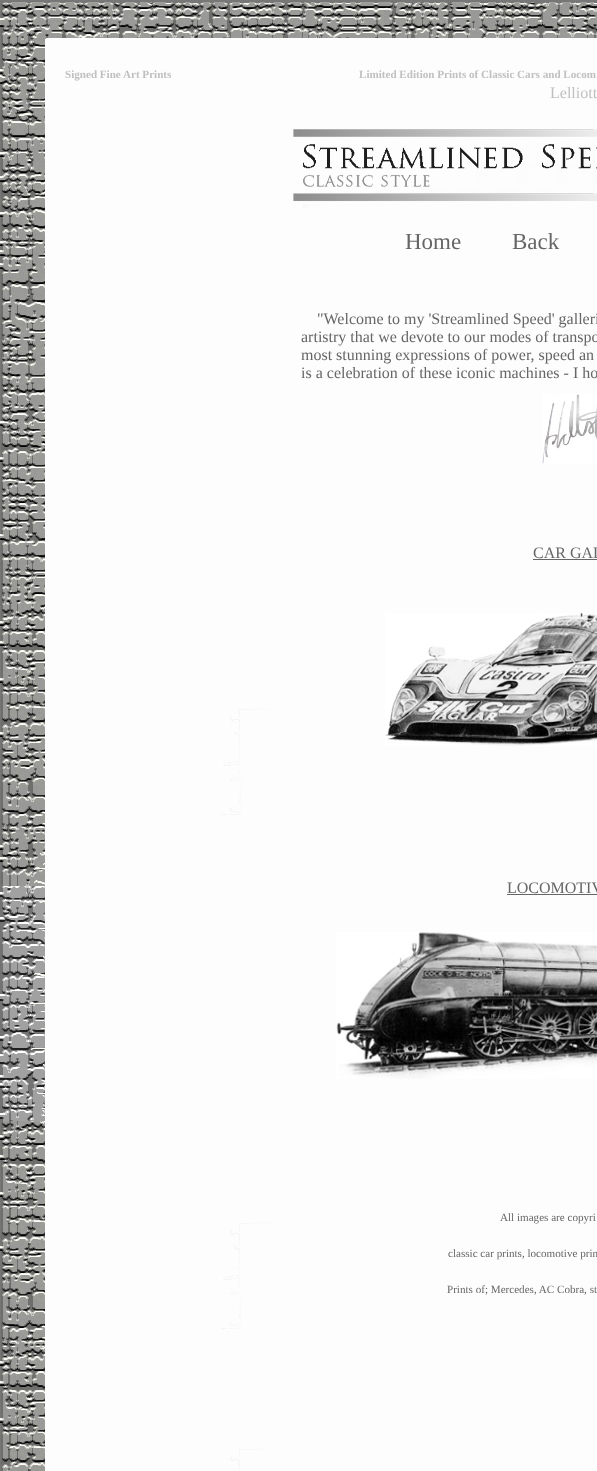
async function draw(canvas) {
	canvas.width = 597;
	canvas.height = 1471;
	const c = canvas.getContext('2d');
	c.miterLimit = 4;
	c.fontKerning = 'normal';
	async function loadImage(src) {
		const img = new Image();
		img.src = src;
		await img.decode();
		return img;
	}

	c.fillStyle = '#fff';
	c.fillRect(0, 0, 597, 1471);
	c.drawImage(await loadImage('img1.png'), 0, 0, 597, 1471);
	c.font = 'bold 11.1px Liberation Serif';
	c.fillStyle = '#c0c0c0';
	c.fillText('Signed Fine Art Prints', 65, 78);
	c.fillText('Limited Edition Prints of Classic Cars and Locom', 359, 78);
	c.font = '16px Liberation Serif';
	c.fillText('Lelliott', 550, 98);
	c.drawImage(await loadImage('img2.png'), 293, 129, 304, 79);
	c.font = '23px Liberation Serif';
	c.fillStyle = '#666';
	c.fillText('Home', 405, 249);
	c.fillText('Back', 512, 249);
	c.font = '16px Liberation Serif';
	for (const [text, x, y] of [
		['"Welcome to my \'Streamlined Speed\' galleri', 317, 324],
		['artistry that we devote to our modes of transpo', 301, 342],
		['most stunning expressions of power, speed an', 301, 360],
		['is a celebration of these iconic machines - I ho', 301, 378],
	]) {
		c.fillText(text, x, y);
	}
	c.drawImage(await loadImage('img3.png'), 542, 394, 55, 70);
	c.fillText('CAR GAL', 533, 558);
	c.fillRect(533, 559, 64, 1);
	c.drawImage(await loadImage('img4.png'), 385, 613, 212, 133);
	c.wordSpacing = '-1px';
	c.fillText('LOCOMOTIV', 507, 893);
	c.fillRect(507, 894, 90, 1);
	c.drawImage(await loadImage('img5.png'), 336, 932, 261, 147);
	c.wordSpacing = '0px';
	c.font = '11.1px Liberation Serif';
	for (const [text, x, y] of [
		['All images are copyri', 500, 1221],
		['classic car prints, locomotive prin', 448, 1257],
		['Prints of; Mercedes, AC Cobra, st', 447, 1293],
	]) {
		c.fillText(text, x, y);
	}
}

draw(document.querySelector('canvas'));
